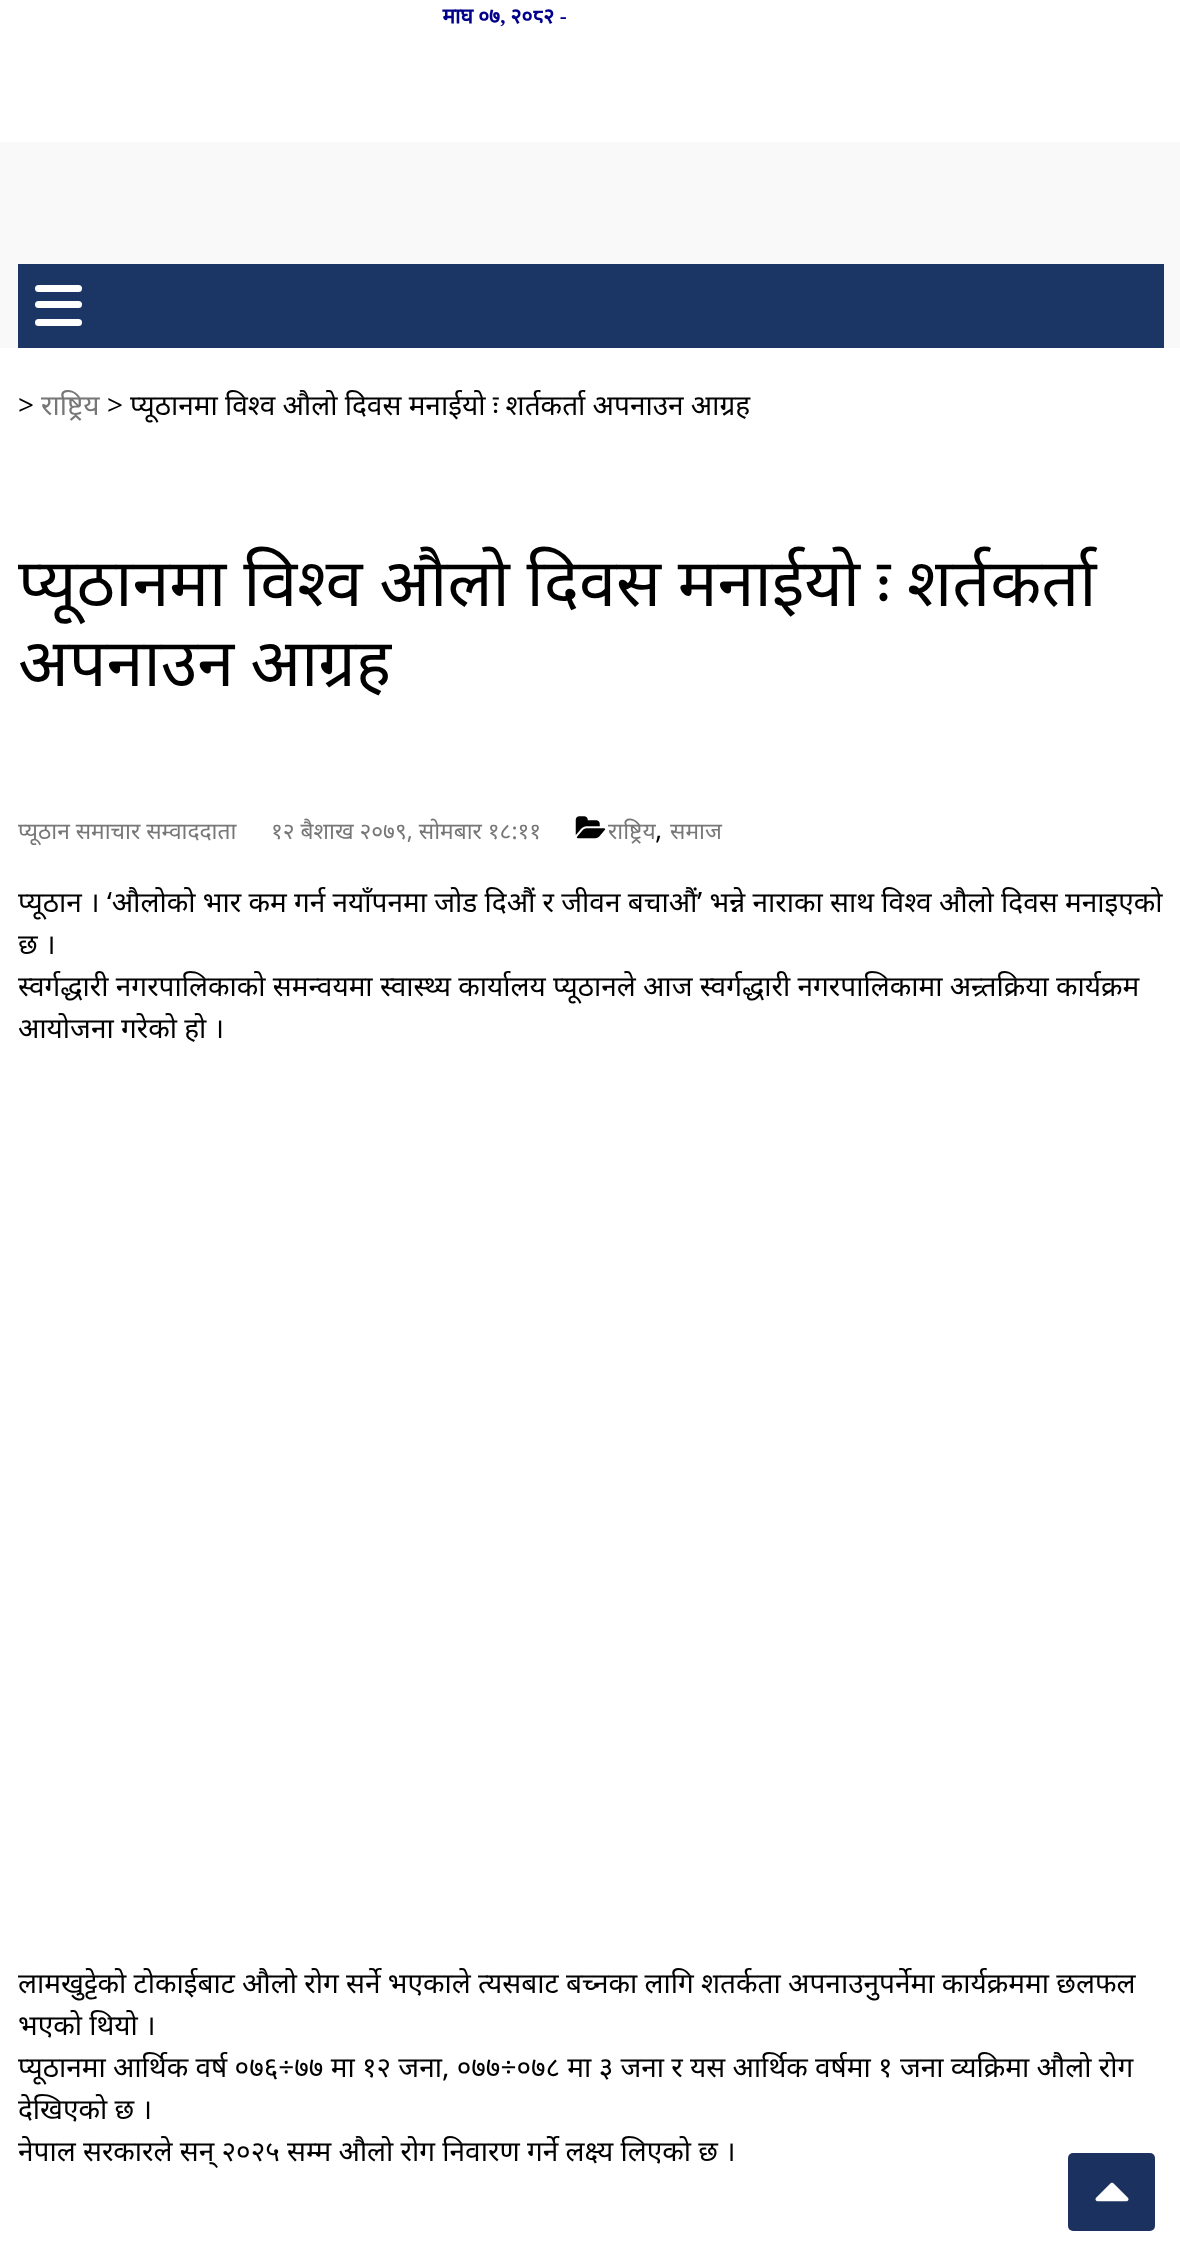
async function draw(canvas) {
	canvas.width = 1180;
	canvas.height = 2257;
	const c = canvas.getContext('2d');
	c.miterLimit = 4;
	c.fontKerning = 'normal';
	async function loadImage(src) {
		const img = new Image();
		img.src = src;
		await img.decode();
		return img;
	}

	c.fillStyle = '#fff';
	c.fillRect(0, 0, 1180, 2257);
	c.drawImage(await loadImage('img1.png'), 442, 9, 124, 18);
	c.fillStyle = '#f9f9f9';
	c.fillRect(0, 142, 1180, 206);
	c.fillStyle = '#1b3564';
	c.fillRect(18, 264, 1146, 84);
	c.fillStyle = '#fff';
	c.beginPath();
	c.roundRect(35, 285, 47, 7, 3.5);
	c.fill();
	c.beginPath();
	c.roundRect(35, 301, 47, 7, 3.5);
	c.fill();
	c.beginPath();
	c.roundRect(35, 319, 47, 7, 3.5);
	c.fill();
	c.font = '28px Open Sans';
	c.fillStyle = '#000';
	c.fillText('>', 18, 415);
	c.font = '28px Noto Sans';
	c.fillStyle = '#777';
	c.fillText('राष्ट्रिय', 41, 415);
	c.font = '28px Open Sans';
	c.fillStyle = '#000';
	c.fillText('>', 107, 415);
	c.font = '28px Noto Sans';
	c.fillText('प्यूठानमा विश्व औलो दिवस मनाईयो ः शर्तकर्ता अपनाउन आग्रह', 130, 415);
	c.wordSpacing = '-0.5px';
	c.font = '66.5px Noto Sans';
	c.fillText('प्यूठानमा विश्व औलो दिवस मनाईयो ः शर्तकर्ता', 18, 606);
	c.wordSpacing = '-1px';
	c.fillText('अपनाउन आग्रह', 18, 686);
	c.wordSpacing = '0px';
	c.font = '22.75px Noto Sans';
	c.fillStyle = '#777';
	c.fillText('प्यूठान समाचार सम्वाददाता', 18, 839);
	c.fillText('१२ बैशाख २०७९, सोमबार १८:११', 271, 839);
	c.drawImage(await loadImage('img2.png'), 575, 816, 31, 23);
	c.fillText('राष्ट्रिय', 608, 839);
	c.font = '28px Open Sans';
	c.fillStyle = '#000';
	c.fillText(',', 655, 839);
	c.font = '22.75px Noto Sans';
	c.fillStyle = '#777';
	c.fillText('समाज', 670, 839);
	c.font = '28px Noto Sans';
	c.fillStyle = '#000';
	for (const [text, x, y] of [
		['प्यूठान । ‘औलोको भार कम गर्न नयाँपनमा जोड दिऔं र जीवन बचाऔं’ भन्ने नाराका साथ विश्व औलो दिवस मनाइएको', 18, 912],
		['छ ।', 18, 954],
		['स्वर्गद्धारी नगरपालिकाको समन्वयमा स्वास्थ्य कार्यालय प्यूठानले आज स्वर्गद्धारी नगरपालिकामा अन्र्तक्रिया कार्यक्रम', 18, 996],
		['आयोजना गरेको हो ।', 18, 1038],
		['लामखुट्टेको टोकाईबाट औलो रोग सर्ने भएकाले त्यसबाट बच्नका लागि शतर्कता अपनाउनुपर्नेमा कार्यक्रममा छलफल', 18, 1993],
		['भएको थियो ।', 18, 2035],
		['प्यूठानमा आर्थिक वर्ष ०७६÷७७ मा १२ जना, ०७७÷०७८ मा ३ जना र यस आर्थिक वर्षमा १ जना व्यक्रिमा औलो रोग', 18, 2077],
		['देखिएको छ ।', 18, 2119],
		['नेपाल सरकारले सन् २०२५ सम्म औलो रोग निवारण गर्ने लक्ष्य लिएको छ ।', 18, 2161],
	]) {
		c.fillText(text, x, y);
	}
	c.fillStyle = '#1b315f';
	c.beginPath();
	c.roundRect(1068, 2153, 87, 78, 5);
	c.fill();
	c.drawImage(await loadImage('img3.png'), 1095, 2182, 34, 20);
}

draw(document.querySelector('canvas'));
